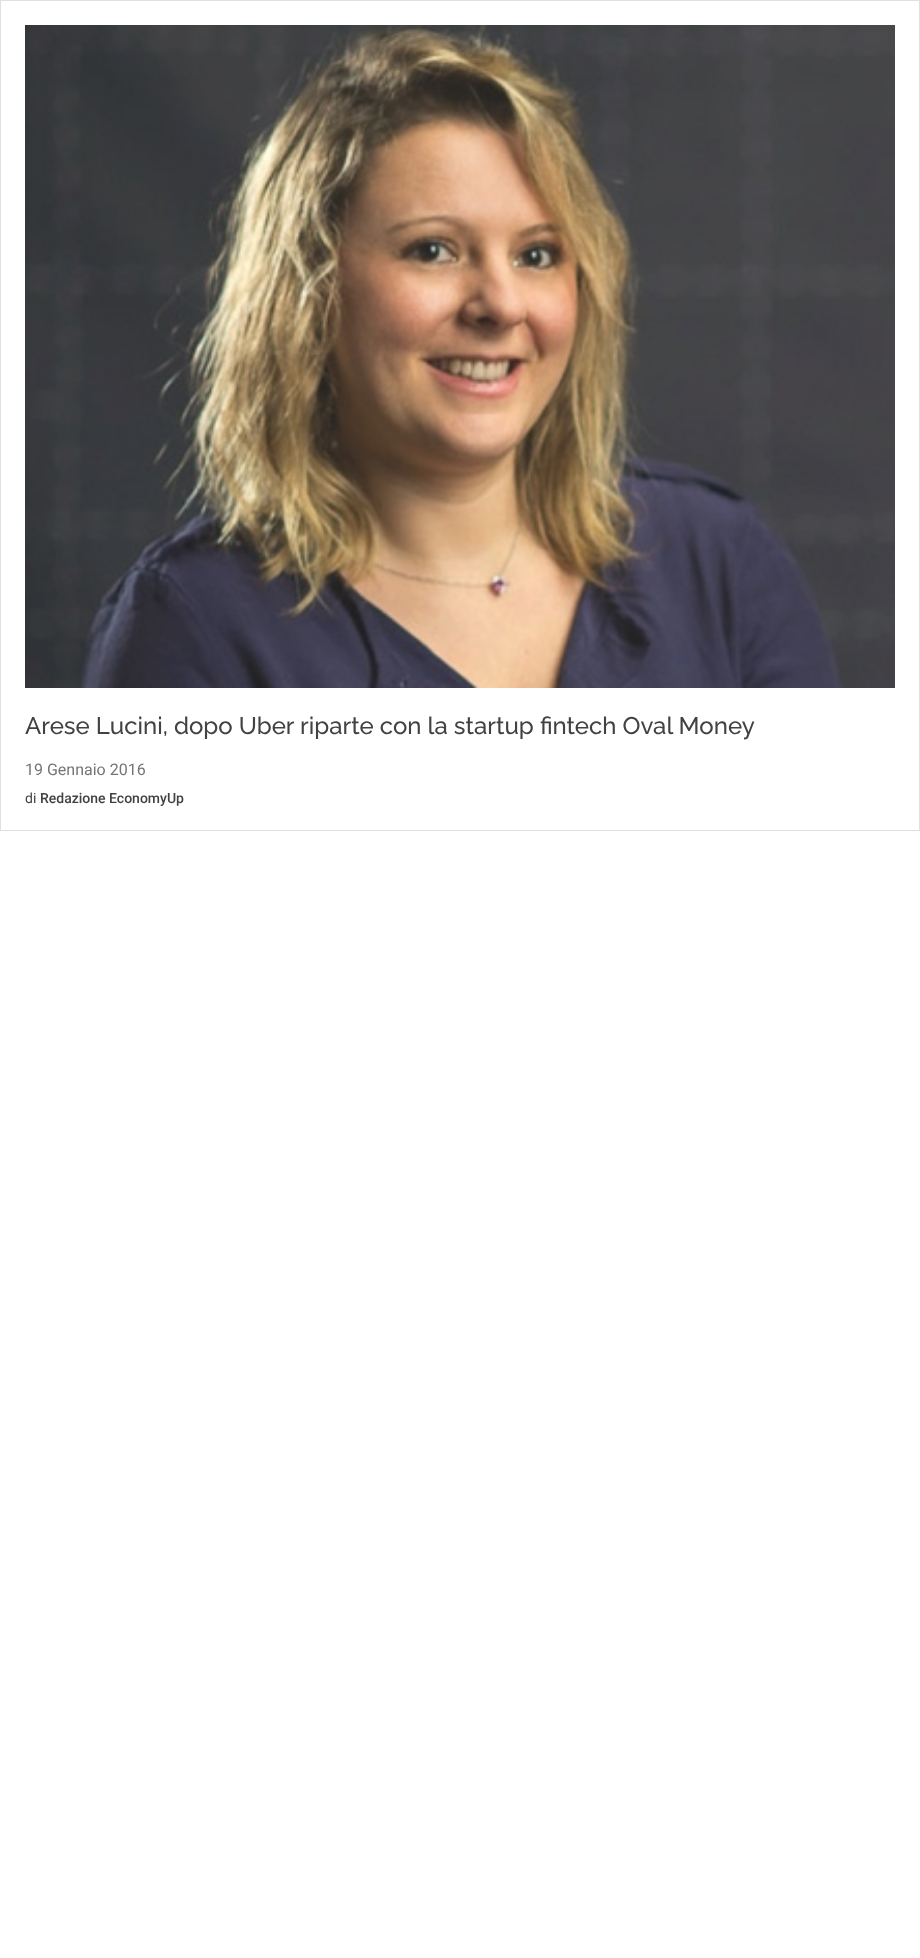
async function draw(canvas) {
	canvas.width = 920;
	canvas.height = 1958;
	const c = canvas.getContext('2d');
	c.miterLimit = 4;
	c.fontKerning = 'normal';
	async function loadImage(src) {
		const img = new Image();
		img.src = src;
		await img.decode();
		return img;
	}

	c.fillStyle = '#fff';
	c.fillRect(0, 0, 920, 1958);
	c.strokeStyle = '#e0e0e0';
	c.strokeRect(0.5, 0.5, 919, 830);
	c.drawImage(await loadImage('img1.png'), 25, 25, 870, 663);
	c.font = '500 24px Raleway';
	c.fillStyle = '#424242';
	c.fillText('Arese Lucini, dopo Uber riparte con la startup fintech Oval Money', 25, 734);
	c.font = '16px Roboto';
	c.fillStyle = '#757575';
	c.fillText('19 Gennaio 2016', 25, 775);
	c.font = '14px Roboto';
	c.fillStyle = '#424242';
	c.fillText('di', 25, 803);
	c.font = '500 14px Roboto';
	c.fillText('Redazione EconomyUp', 40, 803);
}

draw(document.querySelector('canvas'));
